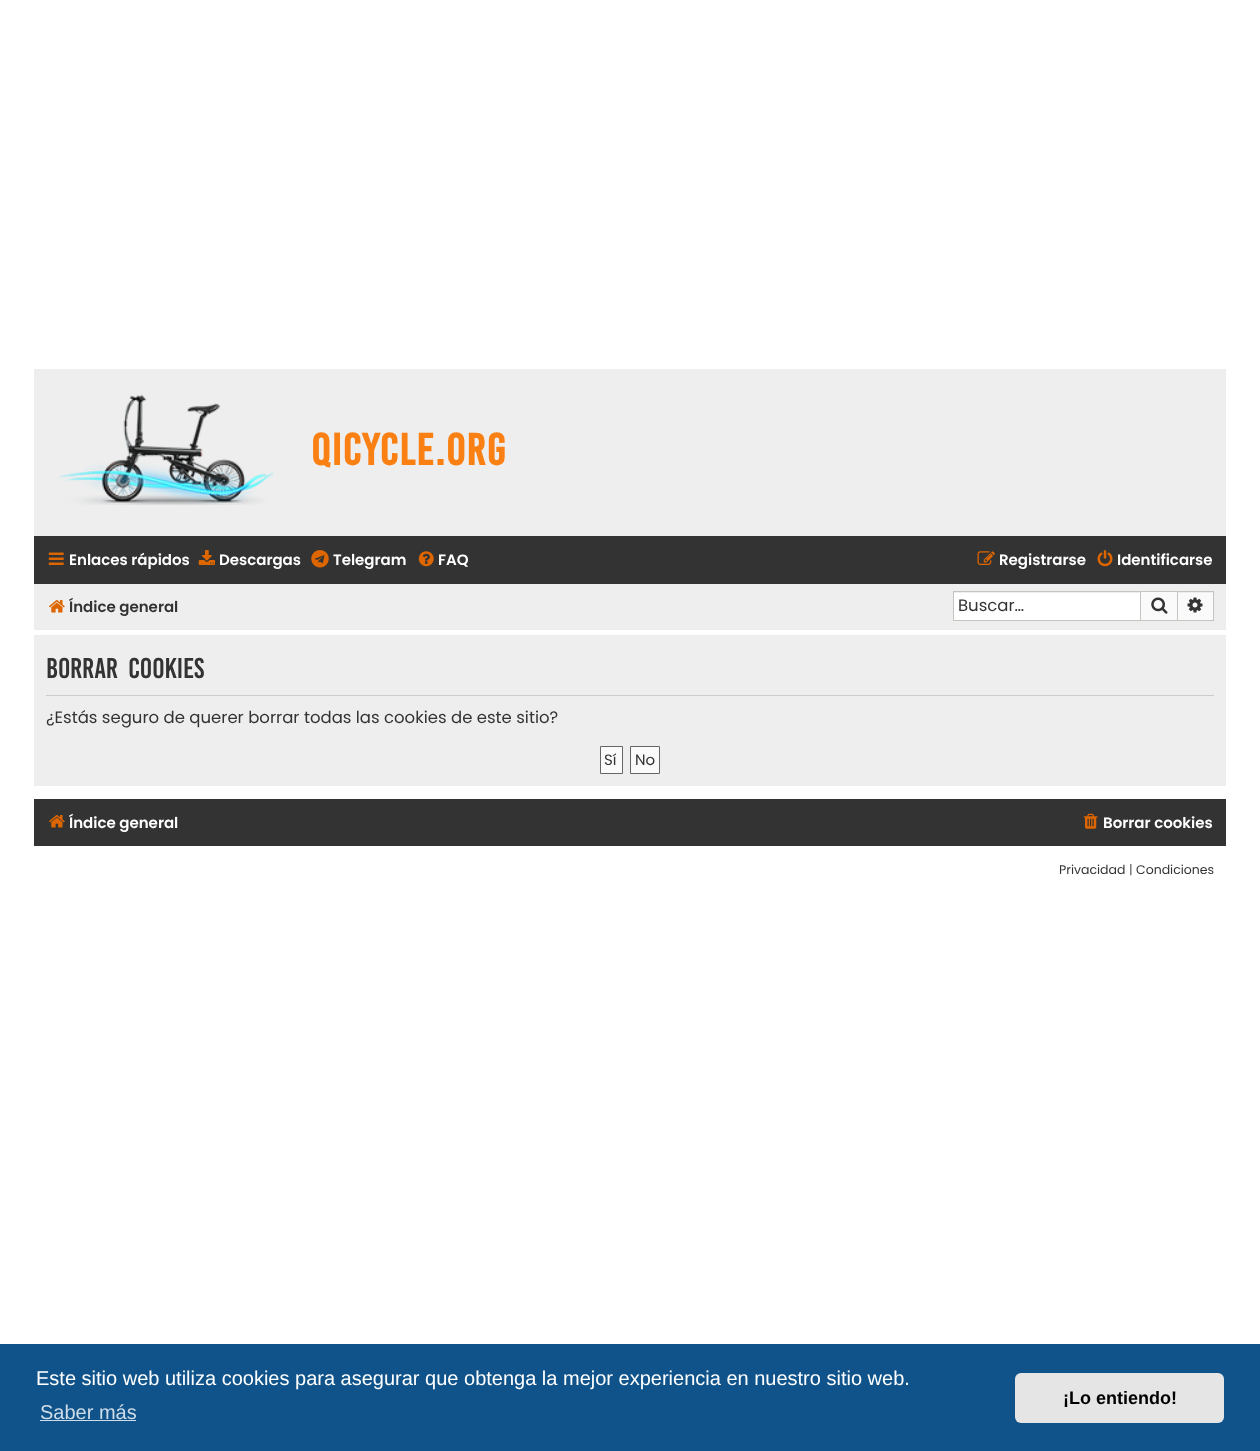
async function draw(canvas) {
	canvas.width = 1260;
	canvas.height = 1451;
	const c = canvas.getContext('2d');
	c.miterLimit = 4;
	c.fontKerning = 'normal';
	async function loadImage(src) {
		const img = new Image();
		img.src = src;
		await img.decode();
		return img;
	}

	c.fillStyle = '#fff';
	c.fillRect(0, 0, 1260, 1451);
	c.fillStyle = '#eee';
	c.fillRect(34, 369, 1192, 167);
	c.drawImage(await loadImage('img1.png'), 59, 394, 215, 111);
	c.letterSpacing = '1.25px';
	c.font = 'bold 34.5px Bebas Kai';
	c.fillStyle = '#fb8014';
	c.fillText('qicycle.org', 311, 465);
	c.fillStyle = '#333';
	c.fillRect(34, 536, 1192, 48);
	c.drawImage(await loadImage('img2.png'), 48, 552, 16, 13);
	c.letterSpacing = '0px';
	c.font = '600 15px Poppins';
	c.fillStyle = '#fff';
	c.fillText('Enlaces rápidos', 69, 565);
	c.drawImage(await loadImage('img3.png'), 198, 550, 17, 15);
	c.fillText('Descargas', 219, 565);
	c.drawImage(await loadImage('img4.png'), 311, 550, 18, 18);
	c.fillText('Telegram', 333, 565);
	c.drawImage(await loadImage('img5.png'), 418, 551, 16, 16);
	c.fillText('FAQ', 438, 565);
	c.drawImage(await loadImage('img6.png'), 977, 551, 18, 14);
	c.fillText('Registrarse', 999, 565);
	c.drawImage(await loadImage('img7.png'), 1097, 550, 16, 17);
	c.fillText('Identificarse', 1117, 565);
	c.fillStyle = '#eee';
	c.fillRect(34, 584, 1192, 46);
	c.drawImage(await loadImage('img8.png'), 49, 600, 16, 13);
	c.fillStyle = '#333';
	c.fillText('Índice general', 69, 612);
	for (const [x, y, w, h, color] of [
		[954, 593, 186, 27, '#fff'],
		[953, 591, 187, 1, '#c7c3bf'],
		[953, 620, 187, 1, '#c7c3bf'],
		[953, 591, 1, 30, '#c7c3bf'],
	]) {
		c.fillStyle = color;
		c.fillRect(x, y, w, h);
	}
	c.font = '16.5px Poppins';
	c.fillStyle = '#333';
	c.fillText('Buscar…', 958, 611);
	c.fillStyle = '#fafafa';
	c.beginPath();
	c.rect(1140.5, 591.5, 37, 29);
	c.fill();
	c.strokeStyle = '#c7c3bf';
	c.stroke();
	c.drawImage(await loadImage('img9.png'), 1151, 597, 17, 17);
	for (const [x, y, w, h, color] of [
		[1178, 593, 35, 27, '#fafafa'],
		[1178, 591, 36, 1, '#c7c3bf'],
		[1213, 591, 1, 30, '#c7c3bf'],
		[1178, 620, 36, 1, '#c7c3bf'],
	]) {
		c.fillStyle = color;
		c.fillRect(x, y, w, h);
	}
	c.drawImage(await loadImage('img10.png'), 1187, 597, 16, 16);
	c.fillStyle = '#eee';
	c.fillRect(34, 635, 1192, 151);
	c.fillStyle = '#ccc';
	c.fillRect(46, 695, 1168, 1);
	c.wordSpacing = '5px';
	c.font = '22px Bebas Kai';
	c.fillStyle = '#333';
	c.fillText('Borrar cookies', 46, 678);
	c.wordSpacing = '0px';
	c.font = '16.5px Poppins';
	c.fillText('¿Estás seguro de querer borrar todas las cookies de este sitio?', 46, 723);
	c.fillStyle = '#fafafa';
	c.beginPath();
	c.rect(600.5, 746.5, 22, 27);
	c.fill();
	c.strokeStyle = '#666';
	c.stroke();
	c.font = '15px Poppins';
	c.fillStyle = '#333';
	c.fillText('Sí', 604, 765);
	c.fillStyle = '#fafafa';
	c.beginPath();
	c.rect(630.5, 746.5, 29, 27);
	c.fill();
	c.stroke();
	c.fillStyle = '#333';
	c.fillText('No', 635, 765);
	c.fillRect(34, 799, 1192, 47);
	c.drawImage(await loadImage('img11.png'), 49, 815, 16, 13);
	c.font = '600 15px Poppins';
	c.fillStyle = '#fff';
	c.fillText('Índice general', 69, 828);
	c.drawImage(await loadImage('img12.png'), 1083, 813, 15, 16);
	c.fillText('Borrar cookies', 1103, 828);
	c.font = '12.5px Poppins';
	c.fillStyle = '#333';
	c.fillText('Privacidad', 1059, 874);
	c.fillStyle = '#555';
	c.fillText('|', 1129, 874);
	c.fillStyle = '#333';
	c.fillText('Condiciones', 1136, 874);
	c.fillStyle = '#0f538a';
	c.fillRect(0, 1344, 1260, 107);
	c.font = '20px Liberation Sans';
	c.fillStyle = '#fff';
	c.fillText('Este sitio web utiliza cookies para asegurar que obtenga la mejor experiencia en nuestro sitio web.', 36, 1385);
	c.fillStyle = '#cfdde8';
	c.fillText('Saber más', 40, 1419);
	c.fillRect(40, 1420, 96, 1);
	c.fillStyle = '#e5e5e5';
	c.beginPath();
	c.roundRect(1015, 1373, 209, 50, 6);
	c.fill();
	c.font = 'bold 18px Liberation Sans';
	c.fillStyle = '#000';
	c.fillText('¡Lo entiendo!', 1063, 1404);
}

draw(document.querySelector('canvas'));
